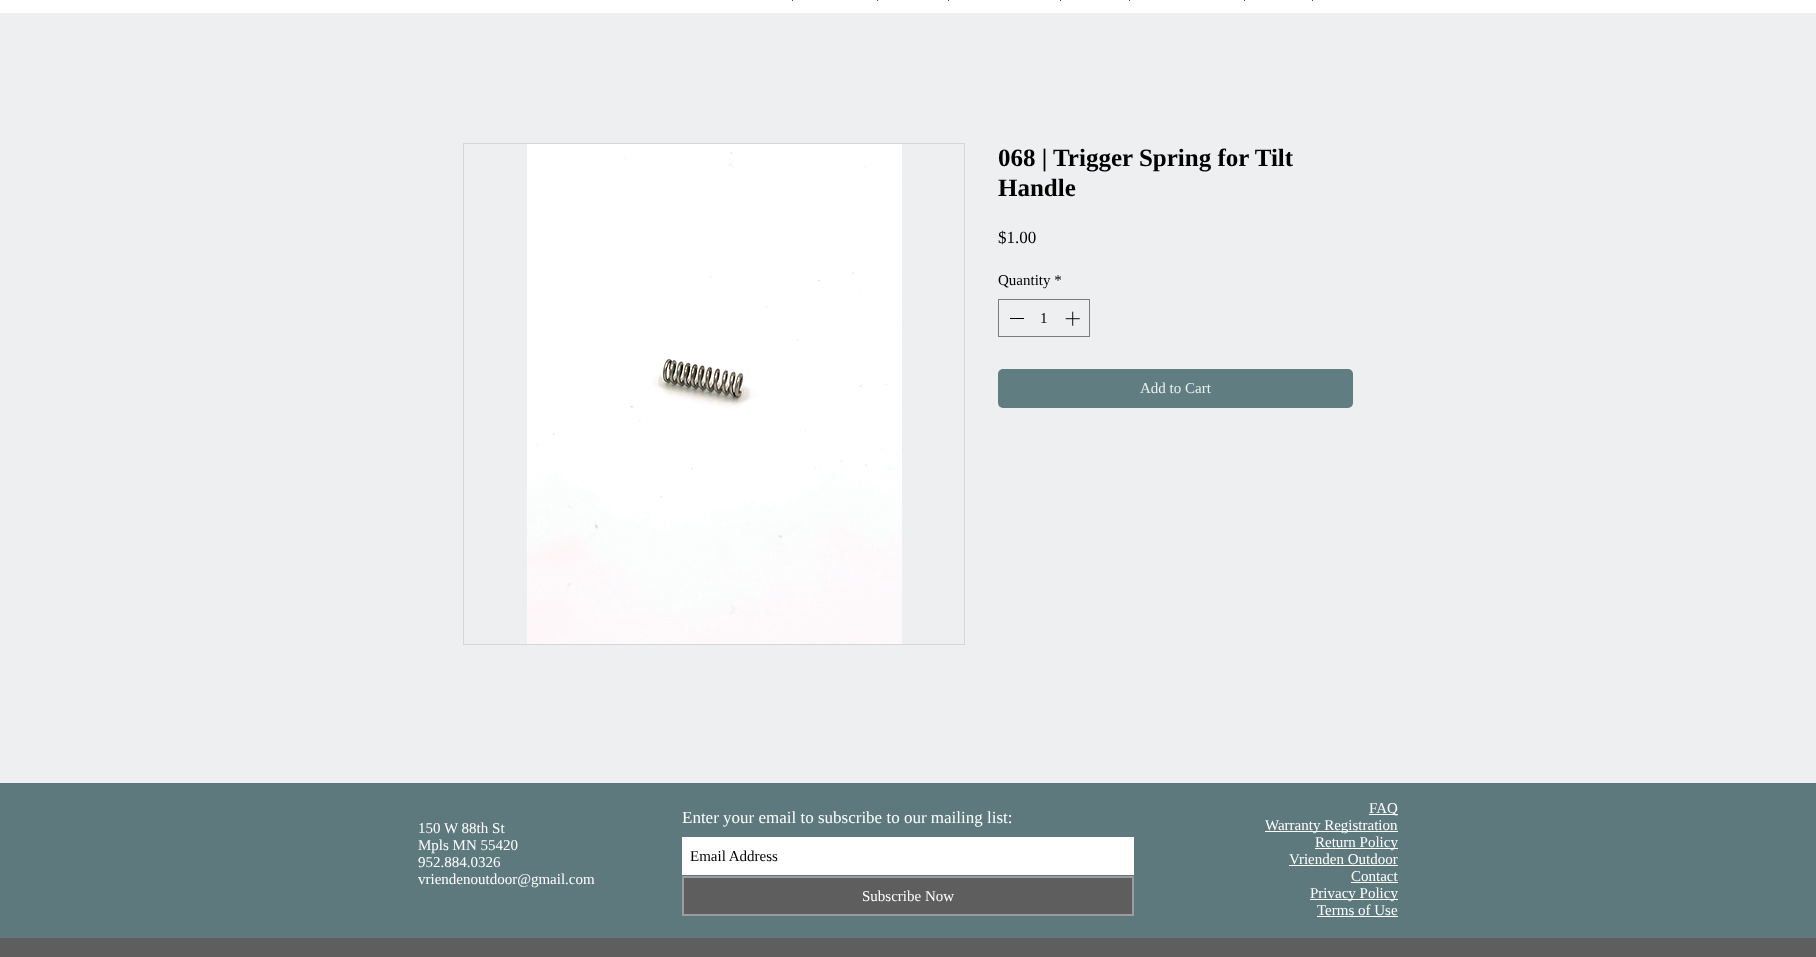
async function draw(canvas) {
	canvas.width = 1816;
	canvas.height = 957;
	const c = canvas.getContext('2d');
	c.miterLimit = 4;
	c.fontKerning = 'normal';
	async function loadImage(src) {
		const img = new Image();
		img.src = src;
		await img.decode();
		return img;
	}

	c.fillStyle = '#edeff0';
	c.fillRect(0, 0, 1816, 957);
	for (const [x, y, w, h, color] of [
		[0, 0, 1816, 13, '#fff'],
		[792, 0, 1, 1, '#61434b'],
		[877, 0, 1, 1, '#61434b'],
		[948, 0, 1, 1, '#61434b'],
		[1060, 0, 1, 1, '#61434b'],
		[1129, 0, 1, 1, '#61434b'],
		[1244, 0, 1, 1, '#61434b'],
		[1312, 0, 1, 1, '#61434b'],
	]) {
		c.fillStyle = color;
		c.fillRect(x, y, w, h);
	}
	c.strokeStyle = '#d6d6d6';
	c.strokeRect(463.5, 143.5, 501, 501);
	c.drawImage(await loadImage('img1.png'), 527, 144, 375, 500);
	c.font = 'bold 25px Liberation Serif';
	c.fillStyle = '#000';
	c.fillText('068 | Trigger Spring for Tilt', 998, 166);
	c.fillText('Handle', 998, 196);
	c.font = '17px Liberation Serif';
	c.fillText('$1.00', 998, 243);
	c.font = '15px Liberation Serif';
	c.fillText('Quantity *', 998, 285);
	c.strokeStyle = '#7b7c7c';
	c.strokeRect(998.5, 299.5, 91, 37);
	c.fillRect(1010, 318, 14, 1);
	c.fillText('1', 1040, 323);
	c.drawImage(await loadImage('img2.png'), 1065, 311, 15, 15);
	c.fillStyle = '#607d82';
	c.beginPath();
	c.roundRect(998, 369, 355, 39, 5);
	c.fill();
	c.fillStyle = '#edeff0';
	c.fillText('Add to Cart', 1140, 393);
	c.fillStyle = '#5d797e';
	c.fillRect(0, 783, 1816, 155);
	c.fillStyle = '#fff';
	for (const [text, x, y] of [
		['150 W 88th St', 418, 833],
		['Mpls MN 55420', 418, 850],
		['952.884.0326', 418, 867],
		['vriendenoutdoor@gmail.com', 418, 884],
	]) {
		c.fillText(text, x, y);
	}
	c.font = '17px Liberation Serif';
	c.fillText('Enter your email to subscribe to our mailing list:', 682, 823);
	c.fillRect(682, 837, 452, 38);
	c.font = '15px Liberation Serif';
	c.fillStyle = '#000';
	c.fillText('Email Address', 690, 861);
	c.fillStyle = '#5e5e5e';
	c.beginPath();
	c.rect(683, 877, 450, 38);
	c.fill();
	c.strokeStyle = '#9c9c9c';
	c.lineWidth = 2;
	c.stroke();
	c.fillStyle = '#fff';
	c.fillText('Subscribe Now', 862, 901);
	c.fillRect(1369, 814, 29, 1);
	c.fillText('FAQ', 1369, 813);
	c.fillRect(1265, 831, 133, 1);
	c.fillText('Warranty Registration', 1265, 830);
	c.fillRect(1315, 848, 83, 1);
	c.fillText('Return Policy', 1315, 847);
	c.fillText('Vrienden Outdoor', 1289, 864);
	c.fillRect(1289, 865, 109, 1);
	c.fillText('Contact', 1351, 881);
	c.fillRect(1351, 882, 47, 1);
	c.fillRect(1310, 899, 88, 1);
	c.fillText('Privacy Policy', 1310, 898);
	c.fillText('Terms of Use', 1317, 915);
	c.fillRect(1317, 916, 81, 1);
	c.fillStyle = '#5e5e5e';
	c.fillRect(0, 938, 1816, 19);
}

draw(document.querySelector('canvas'));
